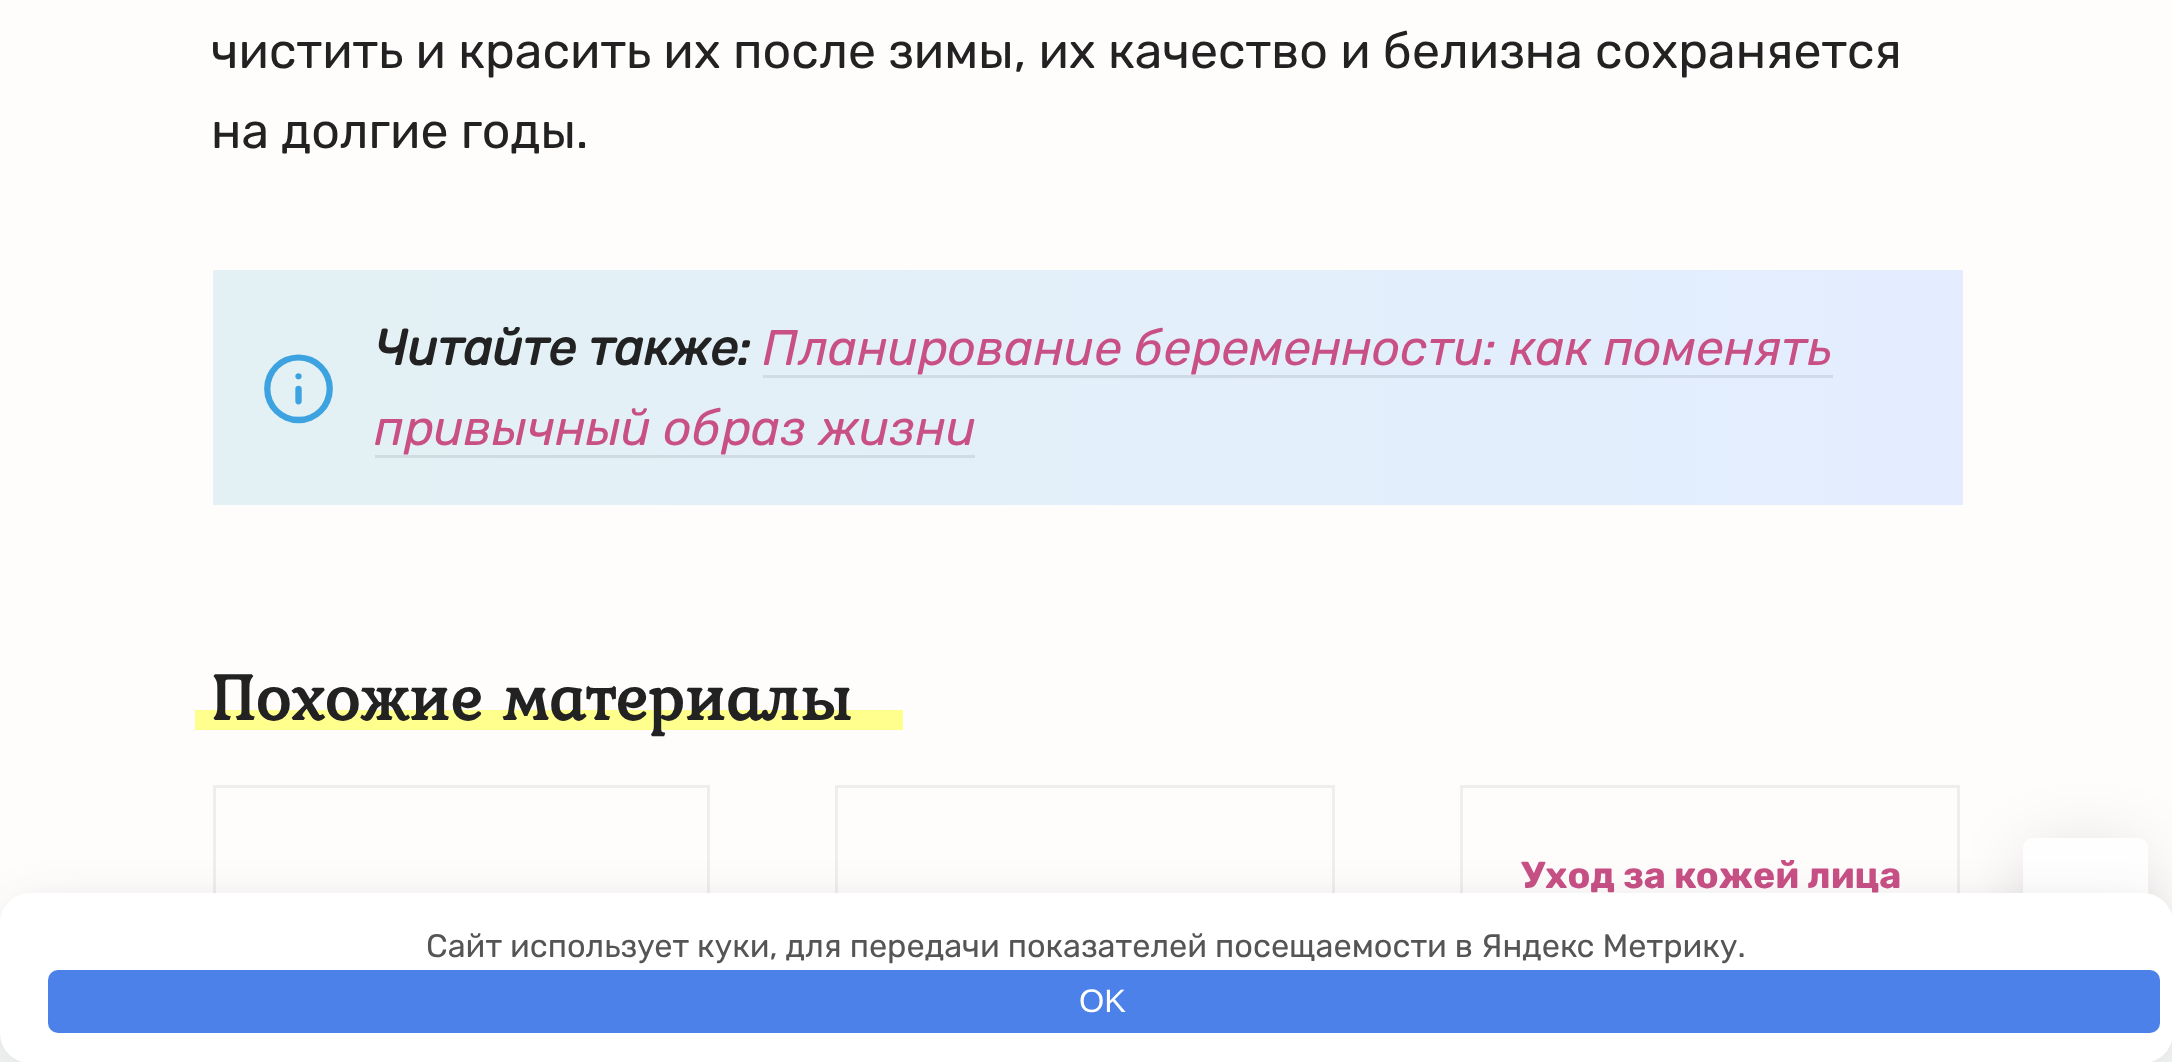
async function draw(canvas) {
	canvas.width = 2172;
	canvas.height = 1062;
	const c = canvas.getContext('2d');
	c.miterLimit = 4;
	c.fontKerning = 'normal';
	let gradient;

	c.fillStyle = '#fffcfc';
	c.fillRect(0, 0, 2172, 1062);
	c.font = '50px Rubik';
	c.fillStyle = '#222';
	c.fillText('чистить и красить их после зимы, их качество и белизна сохраняется', 211, 68);
	c.fillText('на долгие годы.', 211, 148);
	gradient = c.createLinearGradient(213, 388, 1963, 387);
	gradient.addColorStop(0, '#e3f1f4');
	gradient.addColorStop(1, '#e3edff');
	c.fillStyle = gradient;
	c.fillRect(213, 270, 1750, 235);
	gradient = c.createLinearGradient(213, 388, 1963, 387);
	gradient.addColorStop(0, '#d0dcdf');
	gradient.addColorStop(1, '#d0d9e9');
	c.fillStyle = gradient;
	c.fillRect(375, 455, 600, 3);
	c.fillRect(763, 375, 1070, 3);
	c.font = 'italic bold 50px Rubik';
	c.fillStyle = '#222';
	c.fillText('Читайте также:', 374, 365);
	c.font = 'italic 300 50px Rubik';
	c.fillStyle = '#c85085';
	c.fillText('Планирование беременности: как поменять', 763, 365);
	c.font = '75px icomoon';
	c.fillStyle = '#3da2e0';
	c.fillText('👆', 261, 420);
	c.font = 'italic 300 50px Rubik';
	c.fillStyle = '#c85085';
	c.fillText('привычный образ жизни', 374, 445);
	c.fillStyle = '#ffff8e';
	c.fillRect(195, 710, 708, 20);
	c.font = 'bold 67.5px Kurale';
	c.fillStyle = '#222';
	c.fillText('Похожие материалы', 211, 720);
	c.strokeStyle = '#eee';
	c.lineWidth = 3;
	c.strokeRect(214.5, 786.5, 494, 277);
	c.strokeRect(836.5, 786.5, 497, 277);
	c.strokeRect(1461.5, 786.5, 497, 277);
	c.font = 'bold 37.5px Rubik';
	c.fillStyle = '#c85085';
	c.fillText('Уход за кожей лица', 1521, 888);
	c.fillStyle = '#f3f4f4';
	c.fillRect(0, 1033, 2172, 29);
	c.save();
	c.beginPath();
	c.moveTo(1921, 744);
	c.lineTo(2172, 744);
	c.lineTo(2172, 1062);
	c.lineTo(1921, 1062);
	c.closePath();
	c.moveTo(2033, 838);
	c.lineTo(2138, 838);
	c.bezierCurveTo(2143.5, 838, 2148, 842.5, 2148, 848);
	c.lineTo(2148, 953);
	c.bezierCurveTo(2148, 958.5, 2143.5, 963, 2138, 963);
	c.lineTo(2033, 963);
	c.bezierCurveTo(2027.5, 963, 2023, 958.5, 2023, 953);
	c.lineTo(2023, 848);
	c.bezierCurveTo(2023, 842.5, 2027.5, 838, 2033, 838);
	c.closePath();
	c.clip('evenodd');
	c.fillStyle = '#0000002e';
	c.filter = 'blur(37.5px)';
	c.beginPath();
	c.rect(2035, 858, 100, 100);
	c.fill();
	c.filter = 'none';
	c.restore();
	c.fillStyle = '#ffffff99';
	c.beginPath();
	c.roundRect(2023, 838, 125, 125, 10);
	c.fill();
	c.fillStyle = '#292c3833';
	c.filter = 'blur(25px)';
	c.beginPath();
	c.roundRect(13, 913, 2147, 145, 18);
	c.fill();
	c.filter = 'none';
	c.fillStyle = '#fff';
	c.beginPath();
	c.roundRect(0, 893, 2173, 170, 30);
	c.fill();
	c.font = '32.5px Rubik';
	c.fillStyle = '#555';
	c.fillText('Сайт использует куки, для передачи показателей посещаемости в Яндекс Метрику.', 426, 957);
	c.fillStyle = '#4b81e8';
	c.beginPath();
	c.roundRect(48, 970, 2112, 63, 10);
	c.fill();
	c.font = '32.5px Liberation Sans';
	c.fillStyle = '#fff';
	c.fillText('OK', 1079, 1012);
}

draw(document.querySelector('canvas'));
